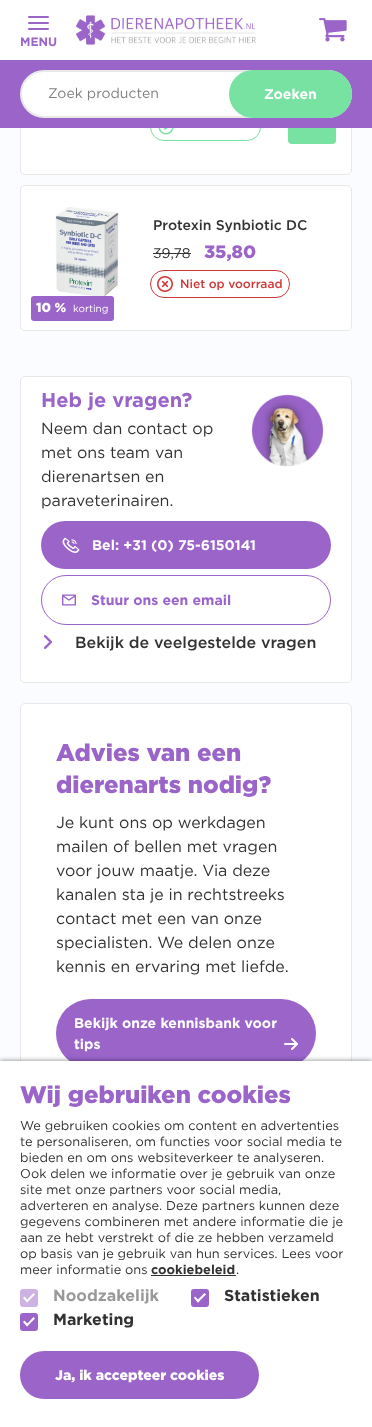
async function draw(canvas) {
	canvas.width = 372;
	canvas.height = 1427;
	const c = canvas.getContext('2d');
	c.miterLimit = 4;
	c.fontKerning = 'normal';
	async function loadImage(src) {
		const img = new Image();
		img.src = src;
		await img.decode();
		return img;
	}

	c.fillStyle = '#fbfcff';
	c.fillRect(0, 0, 372, 1427);
	c.fillStyle = '#fff';
	c.beginPath();
	c.roundRect(20.5, 29.5, 331, 145, 4.5);
	c.fill();
	c.strokeStyle = '#e8e8e8';
	c.stroke();
	c.fillRect(0, 0, 372, 60);
	c.fillStyle = '#9a64c9';
	c.beginPath();
	c.roundRect(28, 16, 21, 2, 1);
	c.fill();
	c.beginPath();
	c.roundRect(28, 22, 21, 2, 1);
	c.fill();
	c.beginPath();
	c.roundRect(28, 28, 21, 2, 1);
	c.fill();
	c.font = 'bold 12px Gotham';
	c.fillText('MENU', 20, 46);
	c.drawImage(await loadImage('img1.png'), 76, 15, 180, 30);
	c.drawImage(await loadImage('img2.png'), 319, 18, 28, 24);
	c.beginPath();
	c.roundRect(150.5, 113.5, 110, 27, 13.5);
	c.strokeStyle = '#77e2a2';
	c.stroke();
	c.fillStyle = '#77e2a2';
	c.beginPath();
	c.roundRect(288, 96, 48, 48, 4);
	c.fill();
	c.fillStyle = '#9a64c9';
	c.fillRect(0, 60, 372, 68);
	c.fillStyle = '#fff';
	c.beginPath();
	c.roundRect(21, 71, 330, 46, 23);
	c.fill();
	c.strokeStyle = '#e8e8e8';
	c.lineWidth = 2;
	c.stroke();
	c.font = '14px Gotham';
	c.fillStyle = '#808080';
	c.fillText('Zoek producten', 48, 98);
	c.fillStyle = '#77e2a2';
	c.beginPath();
	c.roundRect(229, 70, 123, 48, 24);
	c.fill();
	c.font = 'bold 14px Gotham';
	c.fillStyle = '#fff';
	c.fillText('Zoeken', 264, 99);
	c.drawImage(await loadImage('img3.png'), 158, 128, 16, 7);
	c.beginPath();
	c.roundRect(20.5, 185.5, 331, 145, 4.5);
	c.fill();
	c.lineWidth = 1;
	c.stroke();
	c.font = '500 14px Gotham';
	c.fillStyle = '#323232';
	c.fillText('Protexin Synbiotic DC', 153, 230);
	c.font = '14px Gotham';
	c.fillText('39,78', 153, 258);
	c.fillRect(153, 253, 38, 1);
	c.font = '900 18px Gotham';
	c.fillStyle = '#9a64c9';
	c.fillText('35,80', 204, 258);
	c.beginPath();
	c.roundRect(150.5, 270.5, 139, 27, 13.5);
	c.strokeStyle = '#d03838';
	c.stroke();
	c.drawImage(await loadImage('img4.png'), 157, 276, 16, 16);
	c.font = '500 12px Gotham';
	c.fillStyle = '#d03838';
	c.fillText('Niet op voorraad', 180, 288);
	c.drawImage(await loadImage('img5.png'), 55, 207, 64, 90);
	c.fillStyle = '#9a64c9';
	c.beginPath();
	c.roundRect(31, 296, 83, 25, 3);
	c.fill();
	c.font = '900 13px Gotham';
	c.fillStyle = '#fff';
	c.fillText('10 %', 36, 312);
	c.font = '10px Gotham';
	c.fillText('korting', 73, 312);
	c.beginPath();
	c.roundRect(20.5, 376.5, 331, 306, 4.5);
	c.fill();
	c.strokeStyle = '#e8e8e8';
	c.stroke();
	c.font = 'bold 20px Gotham';
	c.fillStyle = '#9a64c9';
	c.fillText('Heb je vragen?', 41, 407);
	c.font = '16px Gotham';
	c.fillStyle = '#323232';
	for (const [text, x, y] of [
		['Neem dan contact op', 41, 434],
		['met ons team van', 41, 458],
		['dierenartsen en', 41, 482],
		['paraveterinairen.', 41, 506],
	]) {
		c.fillText(text, x, y);
	}
	c.drawImage(await loadImage('img6.png'), 251, 394, 73, 73);
	c.fillStyle = '#9a64c9';
	c.beginPath();
	c.roundRect(41, 521, 290, 48, 24);
	c.fill();
	c.drawImage(await loadImage('img7.png'), 62, 537, 18, 16);
	c.font = 'bold 14px Gotham';
	c.fillStyle = '#fff';
	c.fillText('Bel: +31 (0) 75-6150141', 92, 550);
	c.beginPath();
	c.roundRect(41.5, 575.5, 289, 49, 24.5);
	c.strokeStyle = '#9a64c9';
	c.stroke();
	c.font = '14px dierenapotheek';
	c.fillStyle = '#9a64c9';
	c.fillText('0', 62, 607);
	c.font = 'bold 14px Gotham';
	c.fillText('Stuur ons een email', 91, 605);
	c.drawImage(await loadImage('img8.png'), 44, 635, 8, 14);
	c.font = '500 16px Gotham';
	c.fillStyle = '#323232';
	c.fillText('Bekijk de veelgestelde vragen', 75, 648);
	c.fillStyle = '#fff';
	c.beginPath();
	c.roundRect(20.5, 703.5, 331, 385, 4.5);
	c.fill();
	c.strokeStyle = '#e8e8e8';
	c.stroke();
	c.font = '900 24px Gotham';
	c.fillStyle = '#9a64c9';
	c.fillText('Advies van een', 56, 761);
	c.fillText('dierenarts nodig?', 56, 793);
	c.font = '16px Gotham';
	c.fillStyle = '#323232';
	for (const [text, x, y] of [
		['Je kunt ons op werkdagen', 56, 828],
		['mailen of bellen met vragen', 56, 852],
		['voor jouw maatje. Via deze', 56, 876],
		['kanalen sta je in rechtstreeks', 56, 900],
		['contact met een van onze', 56, 924],
		['specialisten. We delen onze', 56, 948],
		['kennis en ervaring met liefde.', 56, 972],
	]) {
		c.fillText(text, x, y);
	}
	c.fillStyle = '#9a64c9';
	c.beginPath();
	c.roundRect(56, 999, 260, 69, 34.5);
	c.fill();
	c.font = 'bold 14px Gotham';
	c.fillStyle = '#fff';
	c.fillText('Bekijk onze kennisbank voor', 74, 1028);
	c.fillText('tips', 74, 1049);
	c.drawImage(await loadImage('img9.png'), 284, 1038, 14, 12);
	c.fillStyle = '#00000080';
	c.filter = 'blur(2.5px)';
	c.beginPath();
	c.rect(0, 1061, 372, 366);
	c.fill();
	c.filter = 'none';
	c.fillStyle = '#fff';
	c.fillRect(0, 1061, 372, 366);
	c.font = '900 24px Gotham';
	c.fillStyle = '#9a64c9';
	c.fillText('Wij gebruiken cookies', 20, 1103);
	c.font = '12.8px Gotham';
	c.fillStyle = '#323232';
	for (const [text, x, y] of [
		['We gebruiken cookies om content en advertenties', 20, 1130],
		['te personaliseren, om functies voor social media te', 20, 1146],
		['bieden en om ons websiteverkeer te analyseren.', 20, 1162],
		['Ook delen we informatie over je gebruik van onze', 20, 1178],
		['site met onze partners voor social media,', 20, 1194],
		['adverteren en analyse. Deze partners kunnen deze', 20, 1210],
		['gegevens combineren met andere informatie die je', 20, 1226],
		['aan ze hebt verstrekt of die ze hebben verzameld', 20, 1242],
		['op basis van je gebruik van hun services. Lees voor', 20, 1258],
		['meer informatie ons', 20, 1274],
	]) {
		c.fillText(text, x, y);
	}
	c.font = 'bold 12.8px Gotham';
	c.fillText('cookiebeleid', 151, 1274);
	c.fillRect(151, 1275, 85, 1);
	c.font = '12.8px Gotham';
	c.fillText('.', 236, 1274);
	c.fillStyle = '#cdb2e4';
	c.beginPath();
	c.roundRect(21, 1290, 16, 16, 2);
	c.fill();
	c.strokeStyle = '#cdb2e4';
	c.lineWidth = 2;
	c.stroke();
	c.fillStyle = '#fff';
	c.beginPath();
	c.moveTo(33.5, 1293);
	c.lineTo(35, 1294.5);
	c.lineTo(27, 1302.5);
	c.lineTo(26, 1301);
	c.closePath();
	c.fill();
	c.beginPath();
	c.moveTo(24.5, 1296.5);
	c.lineTo(28.5, 1301);
	c.lineTo(27, 1302.5);
	c.lineTo(23, 1298);
	c.closePath();
	c.fill();
	c.font = 'bold 16px Gotham';
	c.fillStyle = '#999';
	c.fillText('Noodzakelijk', 53, 1301);
	c.fillStyle = '#9a64c9';
	c.beginPath();
	c.roundRect(192, 1290, 16, 16, 2);
	c.fill();
	c.strokeStyle = '#9a64c9';
	c.stroke();
	c.fillStyle = '#fff';
	c.beginPath();
	c.moveTo(204.5, 1293);
	c.lineTo(206, 1294.5);
	c.lineTo(198, 1302.5);
	c.lineTo(196.5, 1301);
	c.closePath();
	c.fill();
	c.beginPath();
	c.moveTo(195, 1296.5);
	c.lineTo(199.5, 1301);
	c.lineTo(198, 1302.5);
	c.lineTo(194, 1298);
	c.closePath();
	c.fill();
	c.fillStyle = '#323232';
	c.fillText('Statistieken', 224, 1301);
	c.fillStyle = '#9a64c9';
	c.beginPath();
	c.roundRect(21, 1314, 16, 16, 2);
	c.fill();
	c.stroke();
	c.fillStyle = '#fff';
	c.beginPath();
	c.moveTo(33.5, 1317);
	c.lineTo(35, 1318.5);
	c.lineTo(27, 1326.5);
	c.lineTo(26, 1325);
	c.closePath();
	c.fill();
	c.beginPath();
	c.moveTo(24.5, 1320.5);
	c.lineTo(28.5, 1325);
	c.lineTo(27, 1326.5);
	c.lineTo(23, 1322);
	c.closePath();
	c.fill();
	c.fillStyle = '#323232';
	c.fillText('Marketing', 53, 1325);
	c.fillStyle = '#9a64c9';
	c.beginPath();
	c.roundRect(20, 1351, 239, 48, 24);
	c.fill();
	c.font = '900 14px Gotham';
	c.fillStyle = '#fff';
	c.fillText('Ja, ik accepteer cookies', 55, 1380);
}

draw(document.querySelector('canvas'));
